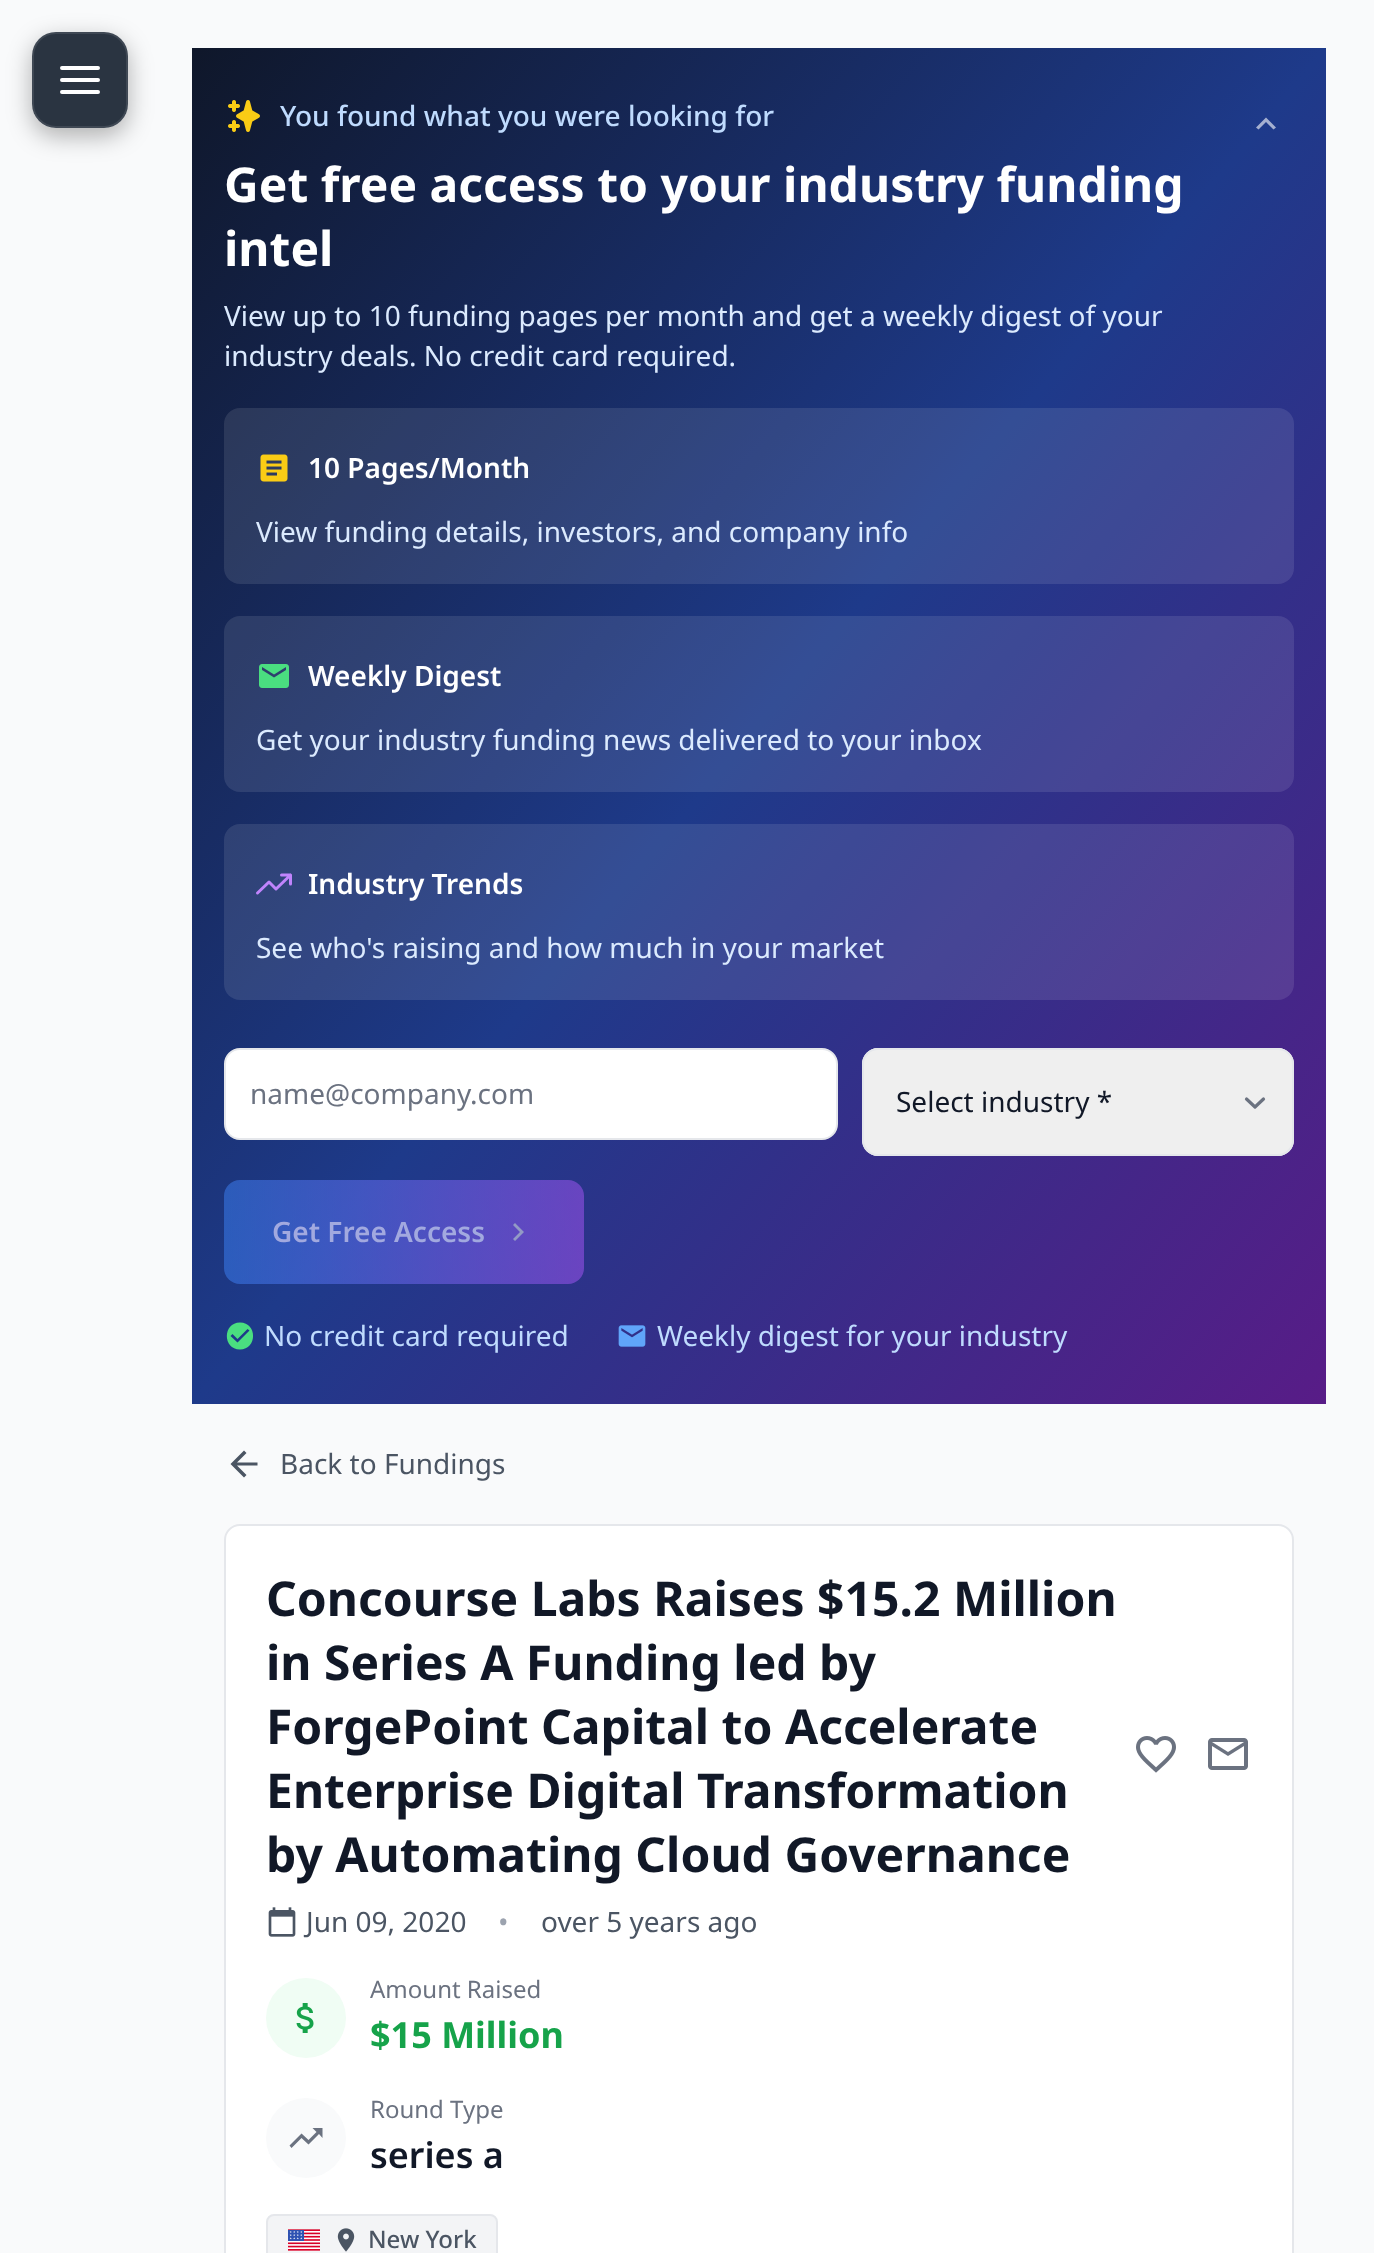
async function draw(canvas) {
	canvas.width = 1374;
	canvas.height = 2253;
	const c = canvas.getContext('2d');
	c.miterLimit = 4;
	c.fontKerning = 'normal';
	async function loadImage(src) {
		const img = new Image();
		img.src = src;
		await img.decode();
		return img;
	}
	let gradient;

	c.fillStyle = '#f9fafb';
	c.fillRect(0, 0, 1374, 2253);
	c.save();
	c.beginPath();
	c.moveTo(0, 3);
	c.lineTo(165, 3);
	c.lineTo(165, 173);
	c.lineTo(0, 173);
	c.closePath();
	c.moveTo(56, 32);
	c.lineTo(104, 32);
	c.bezierCurveTo(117.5, 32, 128, 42.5, 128, 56);
	c.lineTo(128, 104);
	c.bezierCurveTo(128, 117.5, 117.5, 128, 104, 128);
	c.lineTo(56, 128);
	c.bezierCurveTo(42.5, 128, 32, 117.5, 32, 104);
	c.lineTo(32, 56);
	c.bezierCurveTo(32, 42.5, 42.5, 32, 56, 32);
	c.closePath();
	c.clip('evenodd');
	c.fillStyle = '#0000004d';
	c.filter = 'blur(12px)';
	c.beginPath();
	c.roundRect(32, 40, 96, 96, 24);
	c.fill();
	c.filter = 'none';
	c.restore();
	c.fillStyle = '#1f2937f2';
	c.beginPath();
	c.roundRect(32, 32, 96, 96, 24);
	c.fill();
	c.beginPath();
	c.roundRect(33, 33, 94, 94, 23);
	c.strokeStyle = '#ffffff1a';
	c.lineWidth = 2;
	c.stroke();
	c.beginPath();
	c.moveTo(62, 80);
	c.lineTo(98, 80);
	c.moveTo(62, 68);
	c.lineTo(98, 68);
	c.moveTo(62, 92);
	c.lineTo(98, 92);
	c.strokeStyle = '#fff';
	c.lineWidth = 4;
	c.lineCap = 'round';
	c.lineJoin = 'round';
	c.stroke();
	gradient = c.createLinearGradient(92, 168, 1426, 1284);
	gradient.addColorStop(0, '#0f172a');
	gradient.addColorStop(0.5, '#1e3a8a');
	gradient.addColorStop(1, '#581c87');
	c.fillStyle = gradient;
	c.fillRect(192, 48, 1134, 1356);
	c.drawImage(await loadImage('img1.png'), 228, 100, 32, 32);
	c.font = '500 28px Noto Sans';
	c.fillStyle = '#bfdbfe';
	c.fillText('You found what you were looking for', 280, 126);
	c.font = 'bold 48px Noto Sans';
	c.fillStyle = '#fff';
	c.fillText('Get free access to your industry funding', 224, 202);
	c.fillText('intel', 224, 266);
	c.font = '28px Noto Sans';
	c.fillStyle = '#dbeafe';
	c.fillText('View up to 10 funding pages per month and get a weekly digest of your', 224, 326);
	c.fillText('industry deals. No credit card required.', 224, 366);
	c.fillStyle = '#a5b0d0';
	c.beginPath();
	c.moveTo(1266, 117.5);
	c.lineTo(1256, 127.5);
	c.lineTo(1258.5, 129.5);
	c.lineTo(1266, 122);
	c.lineTo(1273.5, 129.5);
	c.lineTo(1276, 127.5);
	c.closePath();
	c.fill();
	c.fillStyle = '#ffffff1a';
	c.beginPath();
	c.roundRect(224, 408, 1070, 176, 16);
	c.fill();
	c.drawImage(await loadImage('img2.png'), 260, 454, 28, 28);
	c.font = '600 28px Noto Sans';
	c.fillStyle = '#fff';
	c.fillText('10 Pages/Month', 308, 478);
	c.font = '28px Noto Sans';
	c.fillStyle = '#dbeafe';
	c.fillText('View funding details, investors, and company info', 256, 542);
	c.fillStyle = '#ffffff1a';
	c.beginPath();
	c.roundRect(224, 616, 1070, 176, 16);
	c.fill();
	c.drawImage(await loadImage('img3.png'), 259, 664, 30, 24);
	c.font = '600 28px Noto Sans';
	c.fillStyle = '#fff';
	c.fillText('Weekly Digest', 308, 686);
	c.font = '28px Noto Sans';
	c.fillStyle = '#dbeafe';
	c.fillText('Get your industry funding news delivered to your inbox', 256, 750);
	c.fillStyle = '#ffffff1a';
	c.beginPath();
	c.roundRect(224, 824, 1070, 176, 16);
	c.fill();
	c.beginPath();
	c.moveTo(290.5, 875);
	c.lineTo(276, 889);
	c.lineTo(269, 882);
	c.lineTo(257.5, 893);
	c.moveTo(281.5, 875);
	c.lineTo(290.5, 875);
	c.lineTo(290.5, 884);
	c.strokeStyle = '#c084fc';
	c.lineWidth = 3;
	c.stroke();
	c.font = '600 28px Noto Sans';
	c.fillStyle = '#fff';
	c.fillText('Industry Trends', 308, 894);
	c.font = '28px Noto Sans';
	c.fillStyle = '#dbeafe';
	c.fillText('See who\'s raising and how much in your market', 256, 958);
	c.fillStyle = '#fff';
	c.beginPath();
	c.roundRect(225, 1049, 612, 90, 15);
	c.fill();
	c.strokeStyle = '#e5e7eb';
	c.lineWidth = 2;
	c.lineJoin = 'miter';
	c.stroke();
	c.fillStyle = '#6b7280';
	c.fillText('name@company.com', 250, 1104);
	c.fillStyle = '#efefef';
	c.beginPath();
	c.roundRect(862, 1048, 432, 108, 16);
	c.fill();
	c.beginPath();
	c.moveTo(1246.5, 1099);
	c.lineTo(1255, 1107);
	c.lineTo(1263.5, 1099);
	c.strokeStyle = '#6b7280';
	c.lineWidth = 3.2;
	c.lineJoin = 'round';
	c.stroke();
	c.beginPath();
	c.roundRect(863, 1049, 430, 106, 15);
	c.strokeStyle = '#e5e7eb';
	c.lineWidth = 2;
	c.lineJoin = 'miter';
	c.stroke();
	c.fillStyle = '#111827';
	c.fillText('Select industry *', 896, 1112);
	gradient = c.createLinearGradient(224, 1232, 584, 1232);
	gradient.addColorStop(0, '#3b82f680');
	gradient.addColorStop(1, '#a855f780');
	c.fillStyle = gradient;
	c.beginPath();
	c.roundRect(224, 1180, 360, 104, 16);
	c.fill();
	c.font = '600 28px Noto Sans';
	c.fillStyle = '#a2a9df';
	c.fillText('Get Free Access', 272, 1242);
	c.fillStyle = '#939ac5';
	c.beginPath();
	c.moveTo(515, 1223);
	c.lineTo(513, 1225);
	c.lineTo(520, 1232);
	c.lineTo(513, 1239);
	c.lineTo(515, 1241);
	c.lineTo(524, 1232);
	c.closePath();
	c.fill();
	c.fillStyle = '#4ade80';
	c.beginPath();
	c.moveTo(240, 1322.5);
	c.bezierCurveTo(222.5, 1322.5, 222.5, 1349.5, 240, 1349.5);
	c.bezierCurveTo(257.5, 1349.5, 257.5, 1322.5, 240, 1322.5);
	c.closePath();
	c.moveTo(237.5, 1342.5);
	c.lineTo(230.5, 1336);
	c.lineTo(232.5, 1334);
	c.lineTo(237.5, 1339);
	c.lineTo(247.5, 1329);
	c.lineTo(249.5, 1330.5);
	c.closePath();
	c.fill();
	c.font = '28px Noto Sans';
	c.fillStyle = '#bfdbfe';
	c.fillText('No credit card required', 264, 1346);
	c.drawImage(await loadImage('img4.png'), 618, 1325, 28, 22);
	c.fillText('Weekly digest for your industry', 657, 1346);
	c.fillStyle = '#4b5563';
	c.beginPath();
	c.moveTo(257.5, 1462.5);
	c.lineTo(237, 1462.5);
	c.lineTo(246.5, 1453);
	c.lineTo(244, 1450.5);
	c.lineTo(230.5, 1464);
	c.lineTo(244, 1477.5);
	c.lineTo(246.5, 1475);
	c.lineTo(237, 1465.5);
	c.lineTo(257.5, 1465.5);
	c.closePath();
	c.fill();
	c.fillText('Back to Fundings', 280, 1474);
	c.fillStyle = '#fff';
	c.beginPath();
	c.roundRect(225, 1525, 1068, 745, 15);
	c.fill();
	c.stroke();
	c.font = 'bold 48px Noto Sans';
	c.fillStyle = '#111827';
	for (const [text, x, y] of [
		['Concourse Labs Raises $15.2 Million', 266, 1616],
		['in Series A Funding led by', 266, 1680],
		['ForgePoint Capital to Accelerate', 266, 1744],
		['Enterprise Digital Transformation', 266, 1808],
		['by Automating Cloud Governance', 266, 1872],
	]) {
		c.fillText(text, x, y);
	}
	c.drawImage(await loadImage('img5.png'), 268, 1907, 28, 30);
	c.font = '28px Noto Sans';
	c.fillStyle = '#4b5563';
	c.fillText('Jun 09, 2020', 306, 1932);
	c.fillStyle = '#9ca3af';
	c.fillText('•', 498, 1932);
	c.fillStyle = '#4b5563';
	c.fillText('over 5 years ago', 541, 1932);
	c.drawImage(await loadImage('img6.png'), 1136, 1736, 40, 37);
	c.drawImage(await loadImage('img7.png'), 1208, 1738, 40, 32);
	c.fillStyle = '#f0fdf4';
	c.beginPath();
	c.arc(306, 2018, 40, 0, 2 * Math.PI);
	c.fill();
	c.drawImage(await loadImage('img8.png'), 296, 2003, 18, 30);
	c.font = '24px Noto Sans';
	c.fillStyle = '#6b7280';
	c.fillText('Amount Raised', 370, 1998);
	c.font = 'bold 36px Noto Sans';
	c.fillStyle = '#16a34a';
	c.fillText('$15 Million', 370, 2048);
	c.fillStyle = '#f9fafb';
	c.beginPath();
	c.arc(306, 2138, 40, 0, 2 * Math.PI);
	c.fill();
	c.fillStyle = '#6b7280';
	c.beginPath();
	c.moveTo(312.5, 2128);
	c.lineTo(316.5, 2132);
	c.lineTo(308.5, 2140);
	c.lineTo(301.5, 2133.5);
	c.lineTo(289.5, 2145.5);
	c.lineTo(291.5, 2148);
	c.lineTo(301.5, 2138);
	c.lineTo(308.5, 2144.5);
	c.lineTo(319, 2134);
	c.lineTo(322.5, 2138);
	c.lineTo(322.5, 2128);
	c.closePath();
	c.fill();
	c.font = '24px Noto Sans';
	c.fillText('Round Type', 370, 2118);
	c.font = '600 36px Noto Sans';
	c.fillStyle = '#111827';
	c.fillText('series a', 370, 2168);
	c.fillStyle = '#f3f4f6';
	c.beginPath();
	c.roundRect(267, 2215, 230, 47, 7);
	c.fill();
	c.stroke();
	c.drawImage(await loadImage('img9.png'), 288, 2229, 32, 22);
	c.drawImage(await loadImage('img10.png'), 337, 2228, 18, 24);
	c.font = '500 24px Noto Sans';
	c.fillStyle = '#4b5563';
	c.fillText('New York', 368, 2248);
}

draw(document.querySelector('canvas'));
